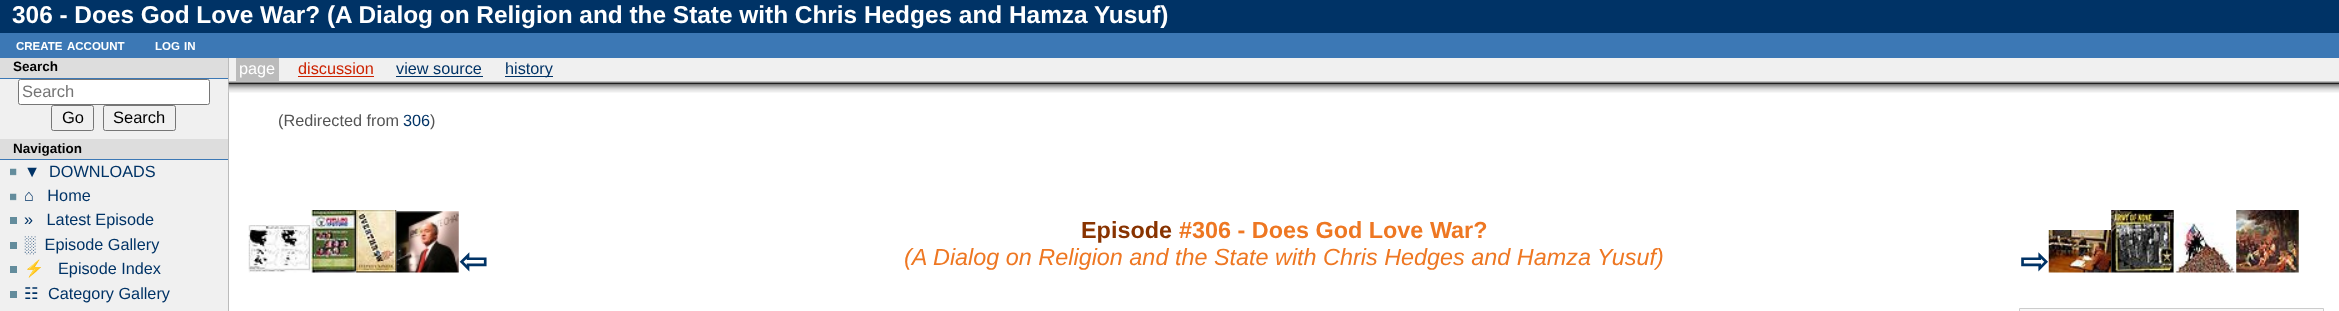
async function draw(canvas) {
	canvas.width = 2339;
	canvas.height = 311;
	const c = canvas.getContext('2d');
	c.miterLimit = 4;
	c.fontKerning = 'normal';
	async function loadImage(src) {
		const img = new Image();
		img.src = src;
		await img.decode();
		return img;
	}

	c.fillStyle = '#f0f0f0';
	c.fillRect(0, 0, 2339, 311);
	c.fillStyle = '#036';
	c.fillRect(0, 0, 2339, 33);
	c.font = 'bold 24.4px Liberation Sans';
	c.fillStyle = '#fff';
	c.fillText('306 - Does God Love War? (A Dialog on Religion and the State with Chris Hedges and Hamza Yusuf)', 12, 23);
	c.fillStyle = '#3c78b5';
	c.fillRect(0, 33, 2339, 25);
	c.font = 'bold 11.5px Liberation Sans';
	c.fillStyle = '#fff';
	for (const [text, x, y] of [
		['CREATE', 16, 50],
		['ACCOUNT', 67, 50],
		['LOG', 155, 50],
		['IN', 184, 50],
	]) {
		c.fillText(text, x, y);
	}
	for (const [x, y, w, h, color] of [
		[228, 58, 1, 23, '#bbb'],
		[0, 58, 228, 20, '#ddd'],
		[0, 78, 228, 1, '#3c78b5'],
	]) {
		c.fillStyle = color;
		c.fillRect(x, y, w, h);
	}
	c.font = 'bold 13.5px Liberation Sans';
	c.fillStyle = '#000';
	c.fillText('Search', 13, 71);
	c.fillStyle = '#fff';
	c.beginPath();
	c.roundRect(18.5, 79.5, 191, 25, 2);
	c.fill();
	c.strokeStyle = '#767676';
	c.stroke();
	c.font = '16.5px Liberation Sans';
	c.fillStyle = '#757575';
	c.fillText('Search', 22, 97);
	c.beginPath();
	c.roundRect(51.5, 105.5, 42, 25, 2);
	c.stroke();
	c.fillStyle = '#000';
	c.fillText('Go', 62, 123);
	c.beginPath();
	c.roundRect(103.5, 105.5, 72, 25, 2);
	c.stroke();
	c.fillText('Search', 113, 123);
	c.fillStyle = '#ddd';
	c.fillRect(0, 139, 228, 20);
	c.fillStyle = '#3c78b5';
	c.fillRect(0, 159, 228, 1);
	c.font = 'bold 13.5px Liberation Sans';
	c.fillStyle = '#000';
	c.fillText('Navigation', 13, 153);
	c.drawImage(await loadImage('img1.png'), 10, 168, 7, 8);
	c.font = '16.25px Liberation Sans';
	c.fillStyle = '#036';
	c.fillText('▼  DOWNLOADS', 24, 177);
	c.drawImage(await loadImage('img1.png'), 10, 193, 7, 8);
	c.fillText('⌂   Home', 24, 201);
	c.fillStyle = '#638c9c';
	c.fillRect(10, 217, 7, 7);
	c.fillStyle = '#036';
	c.fillText('»   Latest Episode', 24, 225);
	c.fillStyle = '#638c9c';
	c.fillRect(10, 242, 7, 7);
	c.fillStyle = '#036';
	c.fillText('░  Episode Gallery', 24, 250);
	c.fillStyle = '#638c9c';
	c.fillRect(10, 266, 7, 7);
	c.font = '16.25px Noto Color Emoji';
	c.fillStyle = '#036';
	c.fillText('⚡', 24, 274);
	c.font = '16.25px Liberation Sans';
	c.fillText('Episode Index', 58, 274);
	c.fillStyle = '#638c9c';
	c.fillRect(10, 291, 7, 7);
	c.font = '16.25px DejaVu Sans';
	c.fillStyle = '#036';
	c.fillText('☷', 24, 299);
	c.font = '16.25px Liberation Sans';
	c.fillText('Category Gallery', 48, 299);
	c.fillStyle = '#bbb';
	c.fillRect(236, 58, 43, 23);
	c.fillStyle = '#fff';
	c.fillText('page', 239, 74);
	c.fillStyle = '#c20';
	c.fillText('discussion', 298, 74);
	c.fillRect(298, 76, 76, 1);
	c.fillStyle = '#036';
	c.fillText('view source', 396, 74);
	c.fillRect(396, 76, 87, 1);
	c.fillRect(505, 76, 48, 1);
	c.fillText('history', 505, 74);
	for (const [x, y, w, h, color] of [
		[229, 82, 2110, 229, '#fff'],
		[228, 81, 2111, 1, '#bbb'],
		[228, 81, 1, 230, '#bbb'],
	]) {
		c.fillStyle = color;
		c.fillRect(x, y, w, h);
	}
	c.drawImage(await loadImage('img2.png'), 228, 82, 2111, 11);
	c.fillStyle = '#545454';
	c.fillText('(Redirected from', 278, 126);
	c.fillStyle = '#036';
	c.fillText('306', 403, 126);
	c.fillStyle = '#545454';
	c.fillText(')', 430, 126);
	c.drawImage(await loadImage('img3.png'), 248, 225, 63, 48);
	c.drawImage(await loadImage('img4.png'), 311, 210, 46, 63);
	c.drawImage(await loadImage('img5.png'), 356, 210, 41, 63);
	c.drawImage(await loadImage('img6.png'), 396, 211, 63, 62);
	c.font = 'bold 34px DejaVu Sans';
	c.fillStyle = '#036';
	c.fillText('⇦', 459, 273);
	c.font = 'bold 23.4px Liberation Sans';
	c.fillStyle = '#830';
	c.fillText('Episode', 1081, 238);
	c.fillStyle = '#e72';
	c.fillText('#306 - Does God Love War?', 1179, 238);
	c.font = 'italic 23.4px Liberation Sans';
	c.fillText('(A Dialog on Religion and the State with Chris Hedges and Hamza Yusuf)', 904, 265);
	c.font = 'bold 34px DejaVu Sans';
	c.fillStyle = '#036';
	c.fillText('⇨', 2020, 273);
	c.drawImage(await loadImage('img7.png'), 2048, 230, 64, 43);
	c.drawImage(await loadImage('img8.png'), 2111, 210, 63, 63);
	c.drawImage(await loadImage('img9.png'), 2173, 222, 63, 51);
	c.drawImage(await loadImage('img10.png'), 2236, 210, 63, 63);
	c.fillStyle = '#f9f9f9';
	c.beginPath();
	c.rect(2019.5, 308.5, 304, 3);
	c.fill();
	c.strokeStyle = '#ccc';
	c.stroke();
}

draw(document.querySelector('canvas'));
